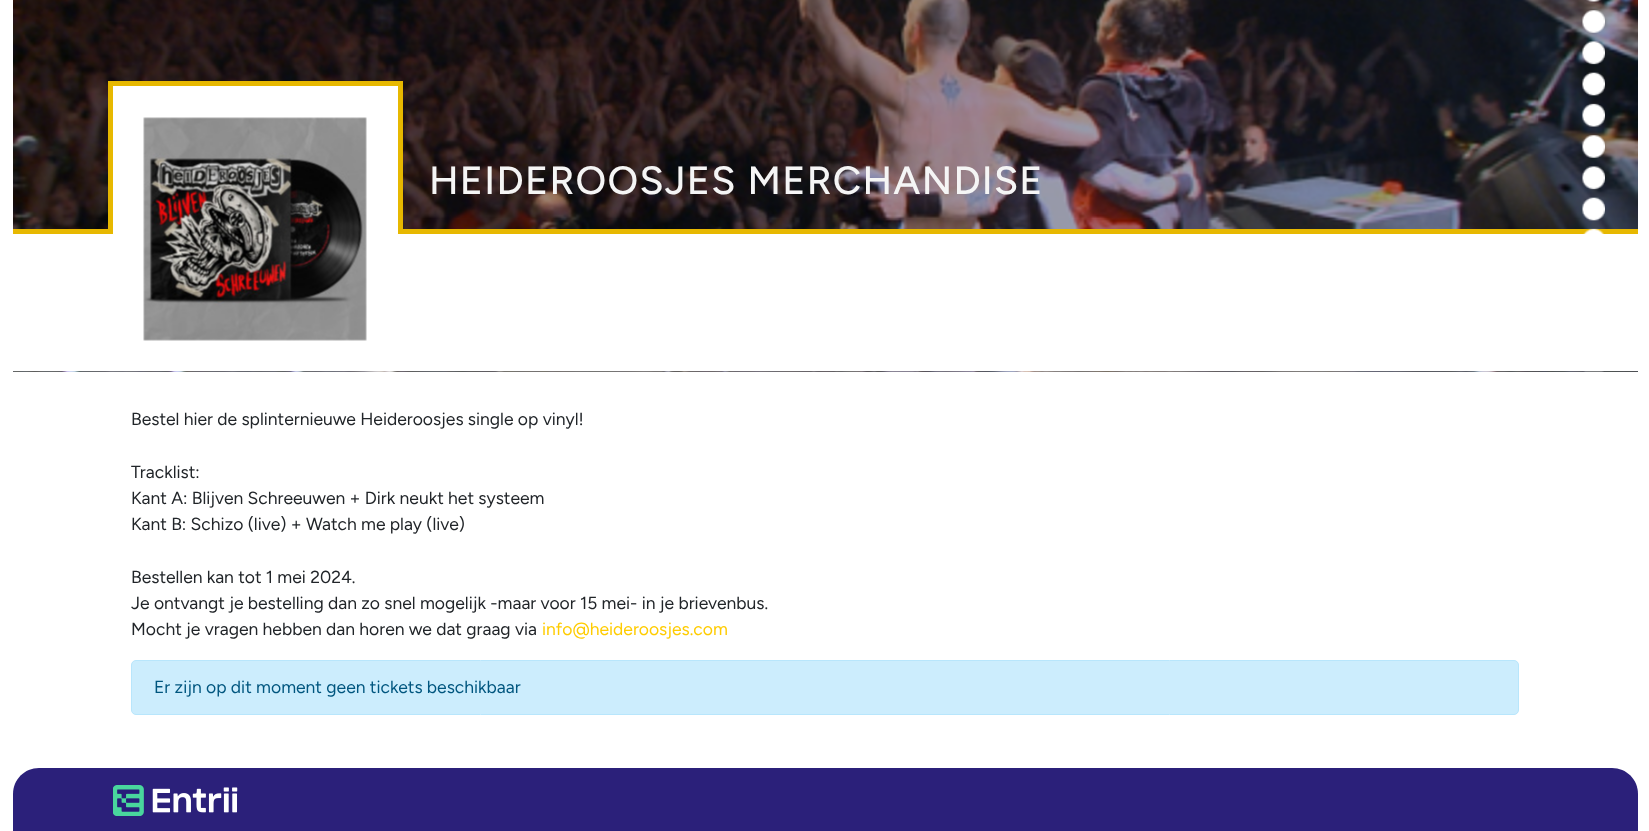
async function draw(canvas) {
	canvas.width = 1649;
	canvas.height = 831;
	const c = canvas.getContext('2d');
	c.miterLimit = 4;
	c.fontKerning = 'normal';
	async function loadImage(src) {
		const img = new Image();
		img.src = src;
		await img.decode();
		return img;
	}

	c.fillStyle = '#fff';
	c.fillRect(0, 0, 1649, 831);
	c.fillStyle = '#000';
	c.fillRect(13, 0, 1625, 229);
	c.drawImage(await loadImage('img1.png'), 13, 0, 1625, 372);
	for (const [x, y, w, h, color] of [
		[108, 81, 295, 148, '#e7b800'],
		[13, 229, 1625, 5, '#e7b800'],
		[113, 86, 285, 148, '#fff'],
		[13, 234, 1625, 137, '#fff'],
	]) {
		c.fillStyle = color;
		c.fillRect(x, y, w, h);
	}
	c.drawImage(await loadImage('img2.png'), 143, 117, 224, 224);
	c.letterSpacing = '1.25px';
	c.font = '500 39.4px Figtree';
	c.fillStyle = '#f5f5f5';
	c.fillText('HEIDEROOSJES MERCHANDISE', 429, 194);
	c.drawImage(await loadImage('img3.png'), 1582, 0, 23, 372);
	c.letterSpacing = '0px';
	c.font = '17.5px Figtree';
	c.fillStyle = '#212529';
	for (const [text, x, y] of [
		['Bestel hier de splinternieuwe Heideroosjes single op vinyl!', 131, 425],
		['Tracklist:', 131, 478],
		['Kant A: Blijven Schreeuwen + Dirk neukt het systeem', 131, 504],
		['Kant B: Schizo (live) + Watch me play (live)', 131, 530],
		['Bestellen kan tot 1 mei 2024.', 131, 583],
		['Je ontvangt je bestelling dan zo snel mogelijk -maar voor 15 mei- in je brievenbus.', 131, 609],
		['Mocht je vragen hebben dan horen we dat graag via', 131, 635],
	]) {
		c.fillText(text, x, y);
	}
	c.fillStyle = '#ffcc01';
	c.fillText('info@heideroosjes.com', 542, 635);
	c.fillStyle = '#ccedfd';
	c.beginPath();
	c.roundRect(131.5, 660.5, 1387, 54, 4.5);
	c.fill();
	c.strokeStyle = '#b8e6fc';
	c.stroke();
	c.fillStyle = '#00567f';
	c.fillText('Er zijn op dit moment geen tickets beschikbaar', 154, 693);
	c.fillStyle = '#2b207a';
	c.beginPath();
	c.moveTo(39, 768);
	c.lineTo(1612, 768);
	c.bezierCurveTo(1626.5, 768, 1638, 779.5, 1638, 794);
	c.lineTo(1638, 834);
	c.lineTo(13, 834);
	c.lineTo(13, 794);
	c.bezierCurveTo(13, 779.5, 24.5, 768, 39, 768);
	c.closePath();
	c.fill();
	c.drawImage(await loadImage('img4.png'), 113, 785, 125, 31);
}

draw(document.querySelector('canvas'));
